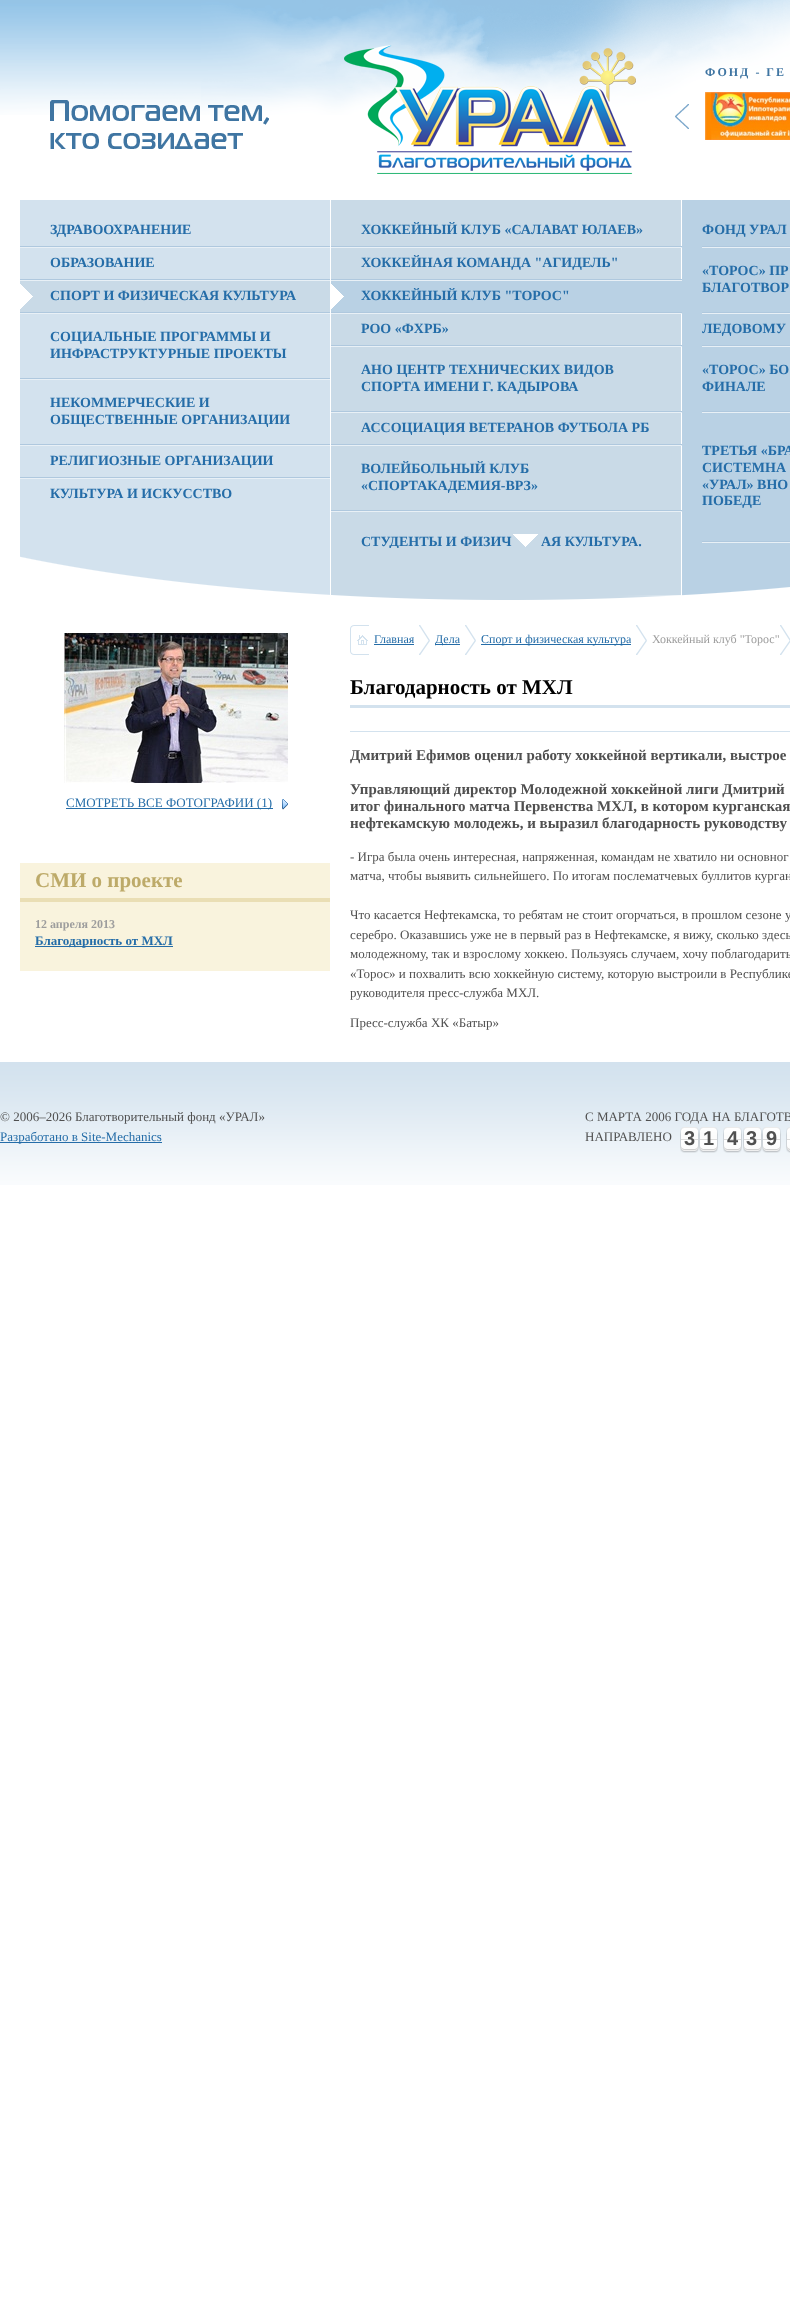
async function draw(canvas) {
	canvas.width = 790;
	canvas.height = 2297;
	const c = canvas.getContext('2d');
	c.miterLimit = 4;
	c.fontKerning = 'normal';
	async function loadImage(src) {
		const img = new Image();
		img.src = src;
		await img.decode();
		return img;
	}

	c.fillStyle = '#fff';
	c.fillRect(0, 0, 790, 2297);
	c.drawImage(await loadImage('img1.png'), 0, 0, 790, 115);
	c.drawImage(await loadImage('img2.png'), 344, 45, 292, 129);
	c.letterSpacing = '2px';
	c.font = 'bold 12px Liberation Serif';
	c.fillStyle = '#3f75a2';
	c.fillText('ФОНД - ГЕ', 705, 76);
	c.drawImage(await loadImage('img3.png'), 675, 104, 14, 25);
	c.drawImage(await loadImage('img4.png'), 705, 92, 85, 48);
	c.drawImage(await loadImage('img5.png'), 50, 100, 219, 49);
	c.fillStyle = '#d3e2ee';
	c.fillRect(20, 200, 310, 395);
	c.drawImage(await loadImage('img6.png'), 20, 556, 310, 39);
	c.letterSpacing = '0px';
	c.font = 'bold 14px Liberation Serif';
	c.fillStyle = '#256da8';
	c.fillText('ЗДРАВООХРАНЕНИЕ', 50, 234);
	c.fillStyle = '#afc8de';
	c.fillRect(20, 246, 310, 1);
	c.fillStyle = '#e8f0f6';
	c.fillRect(20, 247, 310, 1);
	c.fillStyle = '#256da8';
	c.fillText('ОБРАЗОВАНИЕ', 50, 267);
	c.fillStyle = '#afc8de';
	c.fillRect(20, 279, 310, 1);
	c.fillStyle = '#c9dae7';
	c.fillRect(20, 281, 310, 31);
	c.drawImage(await loadImage('img7.png'), 20, 284, 13, 25);
	c.fillStyle = '#e8f0f6';
	c.fillRect(20, 280, 310, 1);
	c.fillStyle = '#256da8';
	c.fillText('СПОРТ И ФИЗИЧЕСКАЯ КУЛЬТУРА', 50, 300);
	c.fillStyle = '#afc8de';
	c.fillRect(20, 312, 310, 1);
	c.fillStyle = '#e8f0f6';
	c.fillRect(20, 313, 310, 1);
	c.fillStyle = '#256da8';
	c.fillText('СОЦИАЛЬНЫЕ ПРОГРАММЫ И', 50, 341);
	c.fillText('ИНФРАСТРУКТУРНЫЕ ПРОЕКТЫ', 50, 358);
	c.fillStyle = '#afc8de';
	c.fillRect(20, 378, 310, 1);
	c.fillStyle = '#e8f0f6';
	c.fillRect(20, 379, 310, 1);
	c.fillStyle = '#256da8';
	c.fillText('НЕКОММЕРЧЕСКИЕ И', 50, 407);
	c.fillText('ОБЩЕСТВЕННЫЕ ОРГАНИЗАЦИИ', 50, 424);
	c.fillStyle = '#afc8de';
	c.fillRect(20, 444, 310, 1);
	c.fillStyle = '#e8f0f6';
	c.fillRect(20, 445, 310, 1);
	c.fillStyle = '#256da8';
	c.fillText('РЕЛИГИОЗНЫЕ ОРГАНИЗАЦИИ', 50, 465);
	c.fillStyle = '#afc8de';
	c.fillRect(20, 477, 310, 1);
	c.fillStyle = '#e8f0f6';
	c.fillRect(20, 478, 310, 1);
	c.fillStyle = '#256da8';
	c.fillText('КУЛЬТУРА И ИСКУССТВО', 50, 498);
	c.fillStyle = '#c9dae7';
	c.fillRect(331, 200, 350, 400);
	c.drawImage(await loadImage('img8.png'), 331, 595, 350, 5);
	c.fillStyle = '#b9d1e4';
	c.fillRect(682, 200, 108, 396);
	c.drawImage(await loadImage('img9.png'), 682, 587, 108, 9);
	c.fillStyle = '#afc8de';
	c.fillRect(331, 246, 351, 1);
	c.fillStyle = '#256da8';
	c.fillText('ХОККЕЙНЫЙ КЛУБ «САЛАВАТ ЮЛАЕВ»', 361, 234);
	c.fillStyle = '#e8f0f6';
	c.fillRect(331, 247, 351, 1);
	c.fillStyle = '#afc8de';
	c.fillRect(331, 279, 351, 1);
	c.fillStyle = '#256da8';
	c.fillText('ХОККЕЙНАЯ КОМАНДА "АГИДЕЛЬ"', 361, 267);
	c.fillStyle = '#b9d1e4';
	c.fillRect(331, 281, 351, 31);
	c.drawImage(await loadImage('img10.png'), 331, 284, 13, 25);
	c.fillStyle = '#e8f0f6';
	c.fillRect(331, 280, 351, 1);
	c.fillStyle = '#afc8de';
	c.fillRect(331, 312, 351, 1);
	c.fillStyle = '#256da8';
	c.fillText('ХОККЕЙНЫЙ КЛУБ "ТОРОС"', 361, 300);
	c.fillStyle = '#e8f0f6';
	c.fillRect(331, 313, 351, 1);
	c.fillStyle = '#afc8de';
	c.fillRect(331, 345, 351, 1);
	c.fillStyle = '#256da8';
	c.fillText('РОО «ФХРБ»', 361, 333);
	c.fillStyle = '#e8f0f6';
	c.fillRect(331, 346, 351, 1);
	c.fillStyle = '#afc8de';
	c.fillRect(331, 411, 351, 1);
	c.fillStyle = '#256da8';
	c.fillText('АНО ЦЕНТР ТЕХНИЧЕСКИХ ВИДОВ', 361, 374);
	c.fillText('СПОРТА ИМЕНИ Г. КАДЫРОВА', 361, 391);
	c.fillStyle = '#e8f0f6';
	c.fillRect(331, 412, 351, 1);
	c.fillStyle = '#afc8de';
	c.fillRect(331, 444, 351, 1);
	c.fillStyle = '#256da8';
	c.fillText('АССОЦИАЦИЯ ВЕТЕРАНОВ ФУТБОЛА РБ', 361, 432);
	c.fillStyle = '#e8f0f6';
	c.fillRect(331, 445, 351, 1);
	c.fillStyle = '#afc8de';
	c.fillRect(331, 510, 351, 1);
	c.fillStyle = '#256da8';
	c.fillText('ВОЛЕЙБОЛЬНЫЙ КЛУБ', 361, 473);
	c.fillText('«СПОРТАКАДЕМИЯ-ВРЗ»', 361, 490);
	c.fillStyle = '#e8f0f6';
	c.fillRect(331, 511, 351, 1);
	c.save();
	c.beginPath();
	c.rect(331, 215, 351, 333);
	c.clip();
	c.fillStyle = '#256da8';
	c.fillText('СТУДЕНТЫ И ФИЗИЧ', 361, 546);
	c.restore();
	c.fillStyle = '#256da8';
	c.fillText('АЯ КУЛЬТУРА.', 541, 546);
	c.drawImage(await loadImage('img11.png'), 513, 534, 25, 13);
	c.fillStyle = '#afc8de';
	c.fillRect(702, 246, 88, 1);
	c.fillStyle = '#256da8';
	c.fillText('ФОНД УРАЛ', 702, 234);
	c.fillStyle = '#e8f0f6';
	c.fillRect(702, 247, 88, 1);
	c.fillStyle = '#afc8de';
	c.fillRect(702, 312, 88, 1);
	c.fillStyle = '#256da8';
	c.fillText('«ТОРОС» ПР', 702, 275);
	c.fillText('БЛАГОТВОР', 702, 292);
	c.fillStyle = '#e8f0f6';
	c.fillRect(702, 313, 88, 1);
	c.fillStyle = '#afc8de';
	c.fillRect(702, 345, 88, 1);
	c.fillStyle = '#256da8';
	c.fillText('ЛЕДОВОМУ', 702, 333);
	c.fillStyle = '#e8f0f6';
	c.fillRect(702, 346, 88, 1);
	c.fillStyle = '#afc8de';
	c.fillRect(702, 411, 88, 1);
	c.fillStyle = '#256da8';
	c.fillText('«ТОРОС» БО', 702, 374);
	c.fillText('ФИНАЛЕ', 702, 391);
	c.fillStyle = '#e8f0f6';
	c.fillRect(702, 412, 88, 1);
	c.fillStyle = '#afc8de';
	c.fillRect(702, 541, 88, 1);
	c.fillStyle = '#256da8';
	for (const [text, x, y] of [
		['ТРЕТЬЯ «БРА', 702, 455],
		['СИСТЕМНА', 702, 472],
		['«УРАЛ» ВНО', 702, 489],
		['ПОБЕДЕ', 702, 505],
	]) {
		c.fillText(text, x, y);
	}
	c.fillStyle = '#e8f0f6';
	c.fillRect(702, 542, 88, 1);
	c.drawImage(await loadImage('img12.png'), 64, 633, 224, 150);
	c.fillStyle = '#256da8';
	c.fillRect(66, 808, 207, 1);
	c.font = '13px Liberation Serif';
	c.fillText('СМОТРЕТЬ ВСЕ ФОТОГРАФИИ (1)', 66, 807);
	c.drawImage(await loadImage('img13.png'), 282, 799, 6, 11);
	c.fillStyle = '#f9f3dd';
	c.fillRect(20, 863, 310, 108);
	c.fillStyle = '#eadeb4';
	c.fillRect(20, 898, 310, 4);
	c.font = 'bold 21px Liberation Serif';
	c.fillStyle = '#bdaa69';
	c.fillText('СМИ о проекте', 35, 887);
	c.font = 'bold 12px Liberation Serif';
	c.fillStyle = '#9d9d9d';
	c.fillText('12 апреля 2013', 35, 928);
	c.fillStyle = '#256da8';
	c.fillRect(35, 946, 138, 1);
	c.font = 'bold 13px Liberation Serif';
	c.fillText('Благодарность от МХЛ', 35, 945);
	c.drawImage(await loadImage('img14.png'), 350, 625, 19, 30);
	c.font = '12px Liberation Serif';
	c.fillText('Главная', 374, 643);
	c.fillRect(374, 644, 40, 1);
	c.fillStyle = '#fff';
	c.fillRect(414, 637, 1, 6);
	c.drawImage(await loadImage('img15.png'), 419, 625, 11, 30);
	c.fillStyle = '#256da8';
	c.fillRect(435, 644, 25, 1);
	c.fillText('Дела', 435, 643);
	c.drawImage(await loadImage('img15.png'), 465, 625, 11, 30);
	c.fillRect(481, 644, 150, 1);
	c.fillText('Спорт и физическая культура', 481, 643);
	c.fillStyle = '#fff';
	c.fillRect(631, 642, 1, 1);
	c.drawImage(await loadImage('img15.png'), 636, 625, 11, 30);
	c.fillStyle = '#9d9d9d';
	c.fillText('Хоккейный клуб "Торос"', 652, 643);
	c.drawImage(await loadImage('img16.png'), 780, 625, 10, 30);
	c.fillStyle = '#d3e2ee';
	c.fillRect(350, 705, 440, 3);
	c.font = 'bold 21px Liberation Serif';
	c.fillStyle = '#000';
	c.fillText('Благодарность от МХЛ', 350, 694);
	c.fillStyle = '#d3e2ee';
	c.fillRect(350, 731, 440, 1);
	c.font = 'bold 15px Liberation Serif';
	c.fillStyle = '#505050';
	for (const [text, x, y] of [
		['Дмитрий Ефимов оценил работу хоккейной вертикали, выстрое', 350, 760],
		['Управляющий директор Молодежной хоккейной лиги Дмитрий', 350, 794],
		['итог финального матча Первенства МХЛ, в котором курганская', 350, 811],
		['нефтекамскую молодежь, и выразил благодарность руководству', 350, 828],
	]) {
		c.fillText(text, x, y);
	}
	c.font = '13px Liberation Serif';
	for (const [text, x, y] of [
		['- Игра была очень интересная, напряженная, командам не хватило ни основног', 350, 861],
		['матча, чтобы выявить сильнейшего. По итогам послематчевых буллитов курган', 350, 880],
		['Что касается Нефтекамска, то ребятам не стоит огорчаться, в прошлом сезоне у', 350, 919],
		['серебро. Оказавшись уже не в первый раз в Нефтекамске, я вижу, сколько здесь', 350, 939],
		['молодежному, так и взрослому хоккею. Пользуясь случаем, хочу поблагодарить', 350, 958],
		['«Торос» и похвалить всю хоккейную систему, которую выстроили в Республике', 350, 978],
		['руководителя пресс-служба МХЛ.', 350, 997],
		['Пресс-служба ХК «Батыр»', 350, 1027],
	]) {
		c.fillText(text, x, y);
	}
	c.drawImage(await loadImage('img17.png'), 0, 1062, 790, 123);
	c.fillText('© 2006–2026 Благотворительный фонд «УРАЛ»', 0, 1121);
	c.fillStyle = '#256da8';
	c.fillRect(0, 1142, 162, 1);
	c.fillText('Разработано в Site-Mechanics', 0, 1141);
	c.fillStyle = '#505050';
	c.fillText('С МАРТА 2006 ГОДА НА БЛАГОТВ', 585, 1121);
	c.drawImage(await loadImage('img18.png'), 680, 1127, 19, 26);
	c.drawImage(await loadImage('img18.png'), 699, 1127, 19, 26);
	c.drawImage(await loadImage('img18.png'), 723, 1127, 19, 26);
	c.drawImage(await loadImage('img18.png'), 743, 1127, 19, 26);
	c.drawImage(await loadImage('img18.png'), 762, 1127, 19, 26);
	c.drawImage(await loadImage('img19.png'), 786, 1127, 4, 26);
	c.fillText('НАПРАВЛЕНО', 585, 1141);
	c.font = 'bold 20px Liberation Sans';
	for (const [text, x, y] of [
		['3', 684, 1145],
		['1', 703, 1145],
		['4', 727, 1145],
		['3', 746, 1145],
		['9', 766, 1145],
	]) {
		c.fillText(text, x, y);
	}
}

draw(document.querySelector('canvas'));
